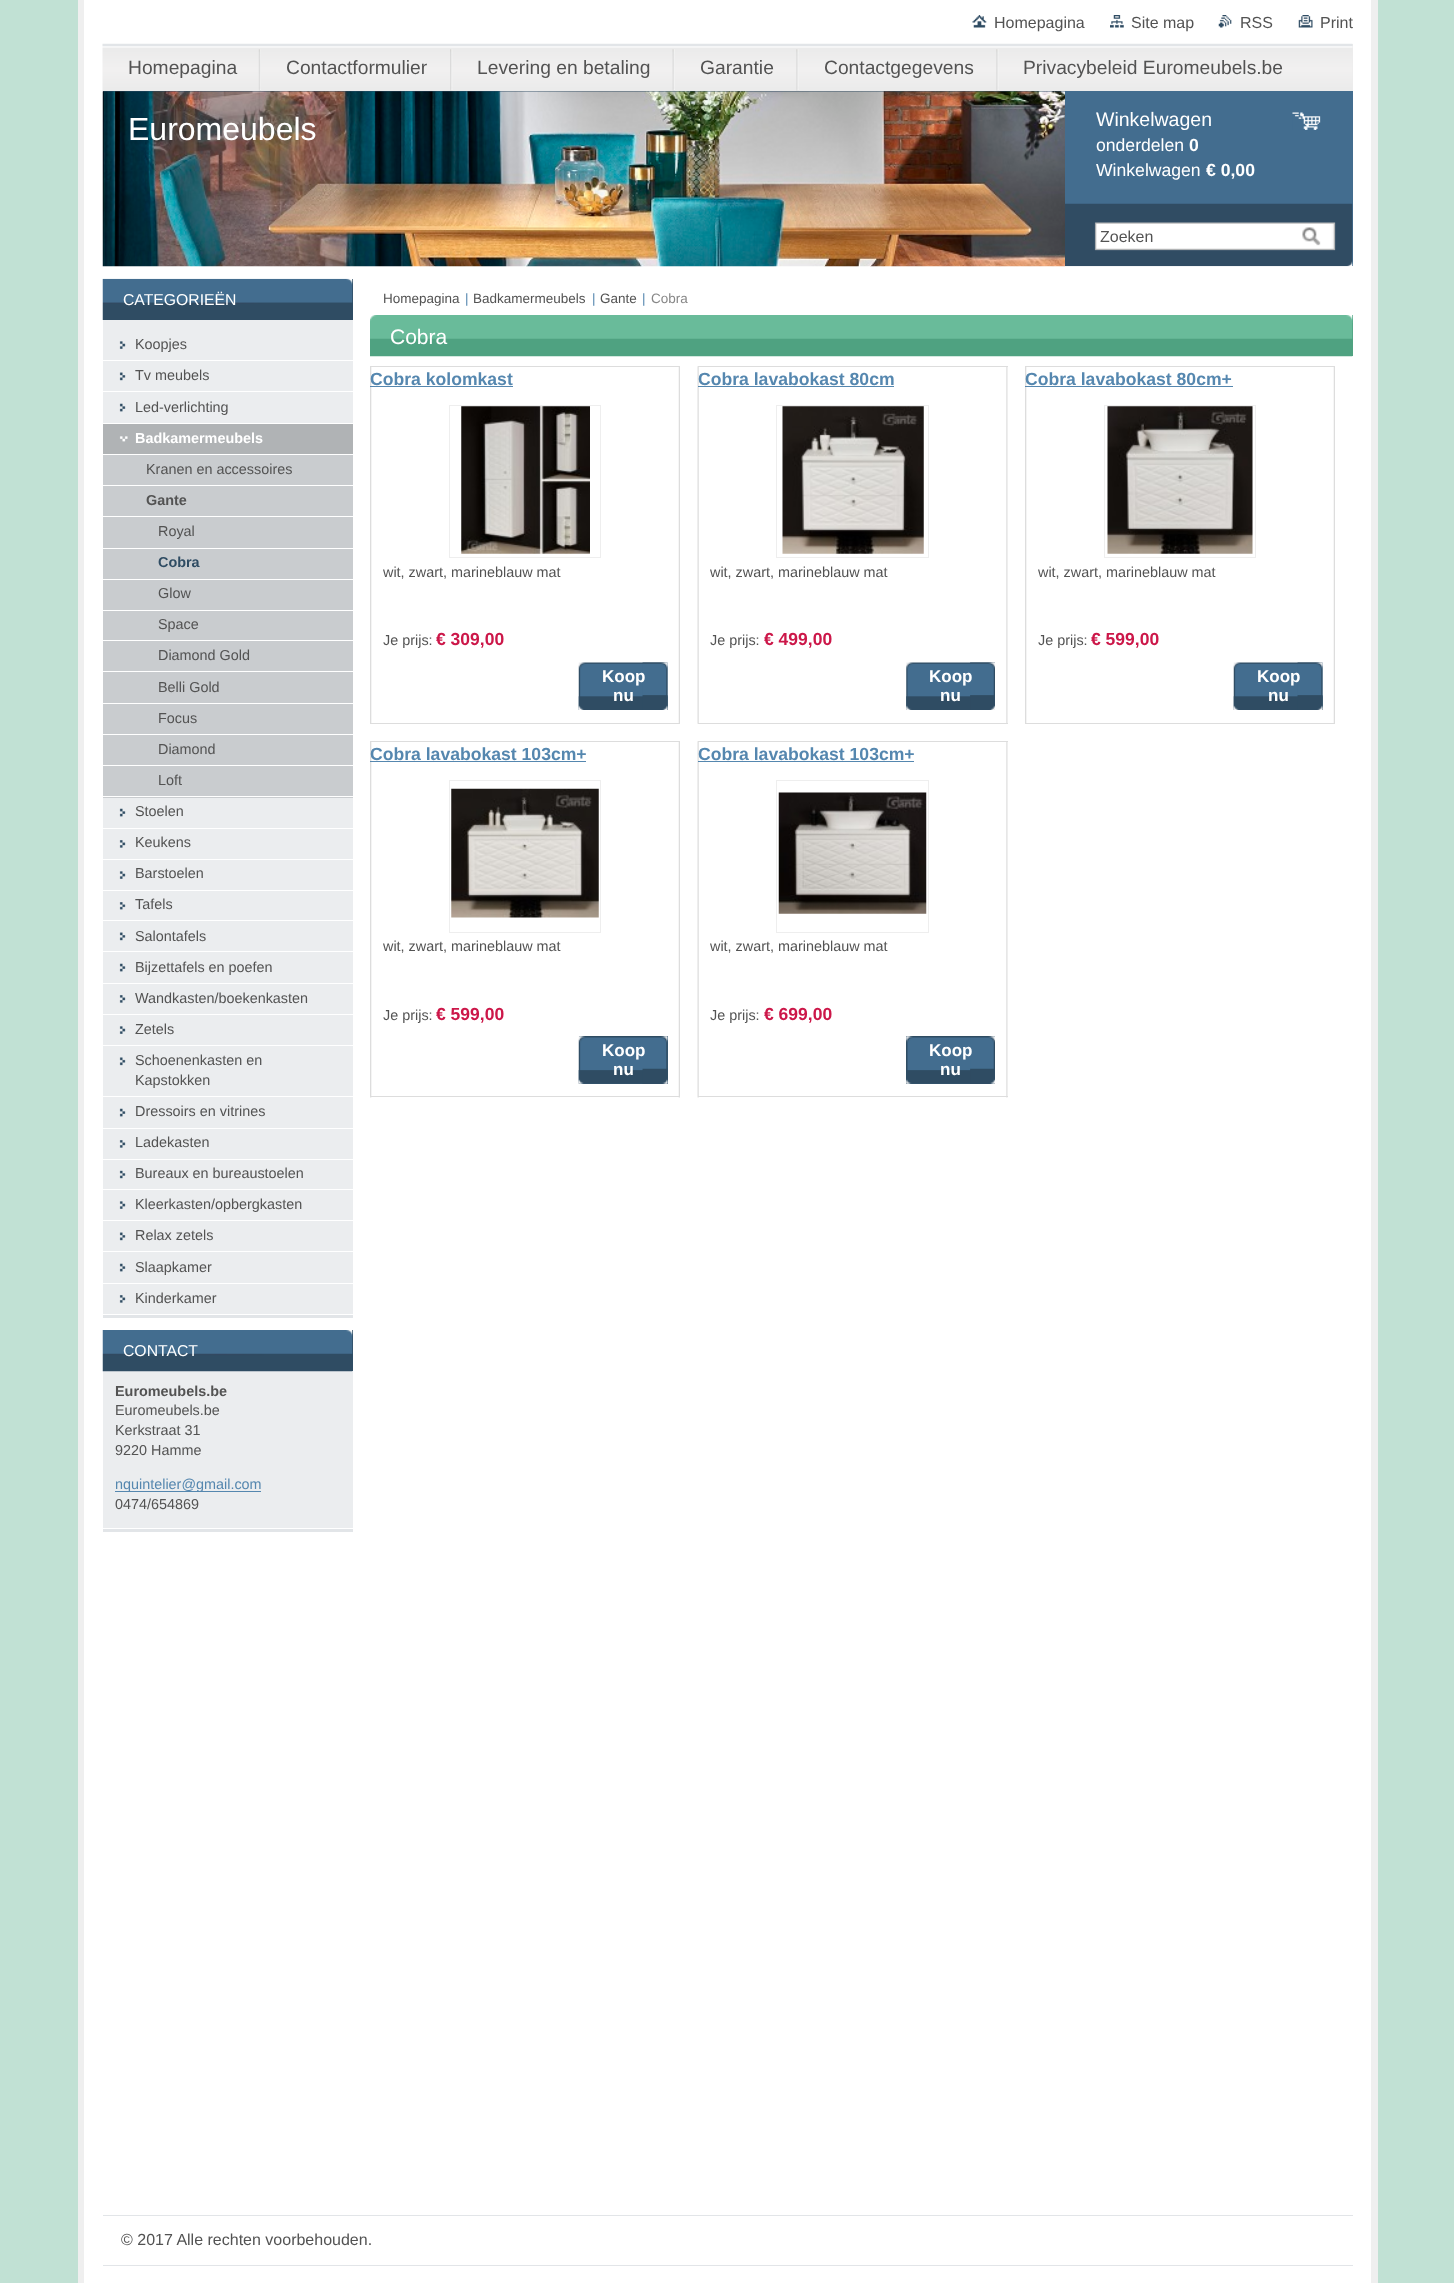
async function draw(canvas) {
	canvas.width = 1454;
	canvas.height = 2283;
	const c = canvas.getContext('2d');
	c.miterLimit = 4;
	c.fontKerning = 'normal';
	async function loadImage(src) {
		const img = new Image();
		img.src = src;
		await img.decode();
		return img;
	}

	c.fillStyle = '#c1e1d4';
	c.fillRect(0, 0, 1454, 2283);
	for (const [x, y, w, h, color] of [
		[84, 0, 1287, 2283, '#fff'],
		[1371, 0, 7, 2283, '#efefef'],
		[78, 0, 6, 2283, '#efefef'],
	]) {
		c.fillStyle = color;
		c.fillRect(x, y, w, h);
	}
	c.drawImage(await loadImage('img1.png'), 972, 15, 15, 13);
	c.font = '16px Liberation Sans';
	c.fillStyle = '#535353';
	c.fillText('Homepagina', 994, 28);
	c.drawImage(await loadImage('img2.png'), 1110, 15, 14, 13);
	c.fillText('Site map', 1131, 28);
	c.drawImage(await loadImage('img3.png'), 1218, 15, 14, 13);
	c.fillText('RSS', 1240, 28);
	c.drawImage(await loadImage('img4.png'), 1298, 15, 15, 13);
	c.fillText('Print', 1320, 28);
	c.fillStyle = '#ececec';
	c.fillRect(1352, 44, 1, 47);
	c.drawImage(await loadImage('img5.png'), 102, 43, 1251, 49);
	c.drawImage(await loadImage('img6.png'), 258, 49, 3, 42);
	c.font = '19.25px Liberation Sans';
	c.fillStyle = '#535353';
	c.fillText('Homepagina', 128, 74);
	c.drawImage(await loadImage('img7.png'), 450, 49, 3, 42);
	c.fillText('Contactformulier', 286, 74);
	c.drawImage(await loadImage('img8.png'), 672, 49, 3, 42);
	c.fillText('Levering en betaling', 477, 74);
	c.drawImage(await loadImage('img9.png'), 796, 49, 3, 42);
	c.fillText('Garantie', 700, 74);
	c.drawImage(await loadImage('img9.png'), 996, 49, 3, 42);
	c.fillText('Contactgegevens', 824, 74);
	c.fillText('Privacybeleid Euromeubels.be', 1023, 74);
	c.fillStyle = '#2f4c63';
	c.fillRect(103, 91, 962, 1);
	c.drawImage(await loadImage('img10.png'), 102, 91, 963, 176);
	c.font = '32px Liberation Sans';
	c.fillStyle = '#fff';
	c.fillText('Euromeubels', 128, 140);
	c.fillStyle = '#436d8f';
	c.fillRect(1065, 91, 288, 113);
	c.drawImage(await loadImage('img11.png'), 1292, 112, 29, 18);
	c.font = '19.5px Liberation Sans';
	c.fillStyle = '#fff';
	c.fillText('Winkelwagen', 1096, 126);
	c.font = '17.6px Liberation Sans';
	c.fillText('onderdelen', 1096, 151);
	c.font = 'bold 17.6px Liberation Sans';
	c.fillText('0', 1189, 151);
	c.font = '17.6px Liberation Sans';
	c.fillText('Winkelwagen', 1096, 176);
	c.font = 'bold 17.6px Liberation Sans';
	c.fillText('€ 0,00', 1206, 176);
	c.fillStyle = '#436d8f';
	c.fillRect(1352, 204, 1, 62);
	c.drawImage(await loadImage('img12.png'), 1065, 203, 288, 64);
	c.font = '16px Liberation Sans';
	c.fillStyle = '#535353';
	c.fillText('Zoeken', 1100, 242);
	c.drawImage(await loadImage('img13.png'), 1302, 227, 22, 19);
	for (const [x, y, w, h, color] of [
		[103, 1315, 250, 3, '#e2e5e8'],
		[103, 320, 250, 994, '#ebedef'],
		[352, 279, 1, 41, '#2f4c63'],
	]) {
		c.fillStyle = color;
		c.fillRect(x, y, w, h);
	}
	c.drawImage(await loadImage('img14.png'), 102, 278, 251, 42);
	c.font = '15.75px Liberation Sans';
	c.fillStyle = '#fff';
	c.fillText('CATEGORIEËN', 123, 305);
	c.drawImage(await loadImage('img15.png'), 119, 341, 7, 8);
	c.fillRect(103, 360, 250, 1);
	c.font = '14.4px Liberation Sans';
	c.fillStyle = '#535353';
	c.fillText('Koopjes', 135, 349);
	c.drawImage(await loadImage('img16.png'), 119, 372, 7, 9);
	c.fillStyle = '#fff';
	c.fillRect(103, 391, 250, 1);
	c.fillStyle = '#535353';
	c.fillText('Tv meubels', 135, 380);
	c.drawImage(await loadImage('img17.png'), 119, 403, 7, 9);
	c.fillStyle = '#fff';
	c.fillRect(103, 423, 250, 1);
	c.fillStyle = '#535353';
	c.fillText('Led-verlichting', 135, 412);
	c.fillStyle = '#b0b3b5';
	c.fillRect(103, 424, 250, 30);
	c.drawImage(await loadImage('img18.png'), 119, 436, 9, 6);
	c.fillStyle = '#fff';
	c.fillRect(103, 454, 250, 1);
	c.font = 'bold 14.4px Liberation Sans';
	c.fillText('Badkamermeubels', 135, 443);
	c.fillStyle = '#c9cccf';
	c.fillRect(103, 455, 250, 343);
	c.fillStyle = '#fff';
	c.fillRect(103, 485, 250, 1);
	c.font = '14.4px Liberation Sans';
	c.fillStyle = '#535353';
	c.fillText('Kranen en accessoires', 146, 474);
	c.fillStyle = '#fff';
	c.fillRect(103, 516, 250, 1);
	c.font = 'bold 14.4px Liberation Sans';
	c.fillStyle = '#535353';
	c.fillText('Gante', 146, 505);
	c.fillStyle = '#fff';
	c.fillRect(103, 548, 250, 1);
	c.font = '14.4px Liberation Sans';
	c.fillStyle = '#535353';
	c.fillText('Royal', 158, 536);
	c.fillStyle = '#fff';
	c.fillRect(103, 579, 250, 1);
	c.font = 'bold 14.4px Liberation Sans';
	c.fillStyle = '#2f4c63';
	c.fillText('Cobra', 158, 567);
	c.fillStyle = '#fff';
	c.fillRect(103, 610, 250, 1);
	c.font = '14.4px Liberation Sans';
	c.fillStyle = '#535353';
	c.fillText('Glow', 158, 598);
	c.fillStyle = '#fff';
	c.fillRect(103, 640, 250, 1);
	c.fillStyle = '#535353';
	c.fillText('Space', 158, 629);
	c.fillStyle = '#fff';
	c.fillRect(103, 671, 250, 1);
	c.fillStyle = '#535353';
	c.fillText('Diamond Gold', 158, 660);
	c.fillStyle = '#fff';
	c.fillRect(103, 703, 250, 1);
	c.fillStyle = '#535353';
	c.fillText('Belli Gold', 158, 692);
	c.fillStyle = '#fff';
	c.fillRect(103, 734, 250, 1);
	c.fillStyle = '#535353';
	c.fillText('Focus', 158, 723);
	c.fillStyle = '#fff';
	c.fillRect(103, 765, 250, 1);
	c.fillStyle = '#535353';
	c.fillText('Diamond', 158, 754);
	c.fillStyle = '#fff';
	c.fillRect(103, 796, 250, 1);
	c.fillStyle = '#535353';
	c.fillText('Loft', 158, 785);
	c.drawImage(await loadImage('img17.png'), 119, 808, 7, 9);
	c.fillStyle = '#fff';
	c.fillRect(103, 828, 250, 1);
	c.fillStyle = '#535353';
	c.fillText('Stoelen', 135, 816);
	c.drawImage(await loadImage('img19.png'), 119, 840, 7, 8);
	c.fillStyle = '#fff';
	c.fillRect(103, 859, 250, 1);
	c.fillStyle = '#535353';
	c.fillText('Keukens', 135, 847);
	c.drawImage(await loadImage('img15.png'), 119, 871, 7, 8);
	c.fillStyle = '#fff';
	c.fillRect(103, 890, 250, 1);
	c.fillStyle = '#535353';
	c.fillText('Barstoelen', 135, 878);
	c.drawImage(await loadImage('img20.png'), 119, 902, 7, 8);
	c.fillStyle = '#fff';
	c.fillRect(103, 920, 250, 1);
	c.fillStyle = '#535353';
	c.fillText('Tafels', 135, 909);
	c.drawImage(await loadImage('img16.png'), 119, 932, 7, 9);
	c.fillStyle = '#fff';
	c.fillRect(103, 951, 250, 1);
	c.fillStyle = '#535353';
	c.fillText('Salontafels', 135, 941);
	c.drawImage(await loadImage('img17.png'), 119, 963, 7, 9);
	c.fillStyle = '#fff';
	c.fillRect(103, 983, 250, 1);
	c.fillStyle = '#535353';
	c.fillText('Bijzettafels en poefen', 135, 972);
	c.drawImage(await loadImage('img19.png'), 119, 995, 7, 8);
	c.fillStyle = '#fff';
	c.fillRect(103, 1014, 250, 1);
	c.fillStyle = '#535353';
	c.fillText('Wandkasten/boekenkasten', 135, 1003);
	c.drawImage(await loadImage('img15.png'), 119, 1026, 7, 8);
	c.fillStyle = '#fff';
	c.fillRect(103, 1045, 250, 1);
	c.fillStyle = '#535353';
	c.fillText('Zetels', 135, 1034);
	c.drawImage(await loadImage('img21.png'), 119, 1057, 7, 9);
	c.fillStyle = '#fff';
	c.fillRect(103, 1096, 250, 1);
	c.fillStyle = '#535353';
	c.fillText('Schoenenkasten en', 135, 1065);
	c.fillText('Kapstokken', 135, 1085);
	c.drawImage(await loadImage('img17.png'), 119, 1108, 7, 9);
	c.fillStyle = '#fff';
	c.fillRect(103, 1128, 250, 1);
	c.fillStyle = '#535353';
	c.fillText('Dressoirs en vitrines', 135, 1116);
	c.drawImage(await loadImage('img19.png'), 119, 1140, 7, 8);
	c.fillStyle = '#fff';
	c.fillRect(103, 1159, 250, 1);
	c.fillStyle = '#535353';
	c.fillText('Ladekasten', 135, 1147);
	c.drawImage(await loadImage('img22.png'), 119, 1170, 7, 9);
	c.fillStyle = '#fff';
	c.fillRect(103, 1189, 250, 1);
	c.fillStyle = '#535353';
	c.fillText('Bureaux en bureaustoelen', 135, 1178);
	c.drawImage(await loadImage('img15.png'), 119, 1201, 7, 8);
	c.fillStyle = '#fff';
	c.fillRect(103, 1220, 250, 1);
	c.fillStyle = '#535353';
	c.fillText('Kleerkasten/opbergkasten', 135, 1209);
	c.drawImage(await loadImage('img16.png'), 119, 1232, 7, 9);
	c.fillStyle = '#fff';
	c.fillRect(103, 1251, 250, 1);
	c.fillStyle = '#535353';
	c.fillText('Relax zetels', 135, 1240);
	c.drawImage(await loadImage('img17.png'), 119, 1263, 7, 9);
	c.fillStyle = '#fff';
	c.fillRect(103, 1283, 250, 1);
	c.fillStyle = '#535353';
	c.fillText('Slaapkamer', 135, 1272);
	c.drawImage(await loadImage('img19.png'), 119, 1295, 7, 8);
	c.fillText('Kinderkamer', 135, 1303);
	for (const [x, y, w, h, color] of [
		[103, 1529, 250, 3, '#e2e5e8'],
		[103, 1371, 250, 157, '#ebedef'],
		[352, 1330, 1, 41, '#2f4c63'],
	]) {
		c.fillStyle = color;
		c.fillRect(x, y, w, h);
	}
	c.drawImage(await loadImage('img23.png'), 102, 1330, 251, 42);
	c.font = '15.75px Liberation Sans';
	c.fillStyle = '#fff';
	c.fillText('CONTACT', 123, 1356);
	c.font = 'bold 14.4px Liberation Sans';
	c.fillStyle = '#535353';
	c.fillText('Euromeubels.be', 115, 1396);
	c.font = '14.4px Liberation Sans';
	for (const [text, x, y] of [
		['Euromeubels.be', 115, 1415],
		['Kerkstraat 31', 115, 1435],
		['9220 Hamme', 115, 1455],
	]) {
		c.fillText(text, x, y);
	}
	c.fillStyle = '#5587af';
	c.fillRect(115, 1491, 146, 1);
	c.fillText('nquintelier@gmail.com', 115, 1489);
	c.fillStyle = '#535353';
	c.fillText('0474/654869', 115, 1509);
	c.font = '13.5px Liberation Sans';
	c.fillText('Homepagina', 383, 303);
	c.fillStyle = '#5587af';
	c.fillText('|', 465, 303);
	c.fillStyle = '#535353';
	c.fillText('Badkamermeubels', 473, 303);
	c.fillStyle = '#5587af';
	c.fillText('|', 592, 303);
	c.fillStyle = '#535353';
	c.fillText('Gante', 600, 303);
	c.fillStyle = '#5587af';
	c.fillText('|', 642, 303);
	c.fillStyle = '#878787';
	c.fillText('Cobra', 651, 303);
	c.fillStyle = '#4fa281';
	c.fillRect(1352, 315, 1, 41);
	c.drawImage(await loadImage('img24.png'), 370, 315, 983, 42);
	c.drawImage(await loadImage('img25.png'), 1346, 315, 7, 8);
	c.font = '21px Liberation Sans';
	c.fillStyle = '#fff';
	c.fillText('Cobra', 390, 344);
	c.drawImage(await loadImage('img26.png'), 370, 367, 310, 356);
	c.fillStyle = '#ddd';
	c.fillRect(370, 366, 310, 1);
	c.fillRect(370, 723, 310, 1);
	c.font = 'bold 17.6px Liberation Sans';
	c.fillStyle = '#5587af';
	c.fillText('Cobra kolomkast', 370, 385);
	c.fillRect(370, 386, 143, 1);
	c.drawImage(await loadImage('img27.png'), 461, 406, 129, 148);
	c.strokeStyle = '#eee';
	c.strokeRect(449.5, 405.5, 151, 152);
	c.font = '14.4px Liberation Sans';
	c.fillStyle = '#535353';
	c.fillText('wit, zwart, marineblauw mat', 383, 577);
	c.fillText('Je prijs:', 383, 645);
	c.font = 'bold 17.5px Liberation Sans';
	c.fillStyle = '#cc1749';
	c.fillText('€ 309,00', 436, 645);
	c.drawImage(await loadImage('img28.png'), 578, 662, 90, 48);
	c.drawImage(await loadImage('img29.png'), 642, 662, 26, 48);
	c.drawImage(await loadImage('img30.png'), 578, 696, 90, 14);
	c.drawImage(await loadImage('img31.png'), 642, 695, 26, 15);
	c.font = 'bold 17px Liberation Sans';
	c.fillStyle = '#fff';
	c.fillText('Koop', 602, 682);
	c.fillText('nu', 613, 701);
	c.drawImage(await loadImage('img32.png'), 697, 366, 311, 358);
	c.fillStyle = '#ddd';
	c.fillRect(698, 366, 310, 1);
	c.fillRect(698, 723, 310, 1);
	c.font = 'bold 17.6px Liberation Sans';
	c.fillStyle = '#5587af';
	c.fillText('Cobra lavabokast 80cm', 698, 385);
	c.fillRect(698, 386, 196, 1);
	c.drawImage(await loadImage('img33.png'), 782, 406, 142, 148);
	c.strokeRect(776.5, 405.5, 152, 152);
	c.font = '14.4px Liberation Sans';
	c.fillStyle = '#535353';
	c.fillText('wit, zwart, marineblauw mat', 710, 577);
	c.fillText('Je prijs:', 710, 645);
	c.font = 'bold 17.5px Liberation Sans';
	c.fillStyle = '#cc1749';
	c.fillText('€ 499,00', 764, 645);
	c.drawImage(await loadImage('img34.png'), 906, 662, 89, 48);
	c.drawImage(await loadImage('img35.png'), 970, 662, 25, 35);
	c.drawImage(await loadImage('img36.png'), 906, 696, 65, 14);
	c.drawImage(await loadImage('img37.png'), 970, 695, 25, 15);
	c.font = 'bold 17px Liberation Sans';
	c.fillStyle = '#fff';
	c.fillText('Koop', 929, 682);
	c.fillText('nu', 940, 701);
	c.drawImage(await loadImage('img26.png'), 1025, 367, 310, 356);
	c.fillStyle = '#ddd';
	c.fillRect(1025, 366, 310, 1);
	c.fillRect(1025, 723, 310, 1);
	c.font = 'bold 17.6px Liberation Sans';
	c.fillStyle = '#5587af';
	c.fillText('Cobra lavabokast 80cm+', 1025, 385);
	c.fillRect(1025, 386, 208, 1);
	c.drawImage(await loadImage('img38.png'), 1107, 406, 146, 148);
	c.strokeRect(1104.5, 405.5, 151, 152);
	c.font = '14.4px Liberation Sans';
	c.fillStyle = '#535353';
	c.fillText('wit, zwart, marineblauw mat', 1038, 577);
	c.fillText('Je prijs:', 1038, 645);
	c.font = 'bold 17.5px Liberation Sans';
	c.fillStyle = '#cc1749';
	c.fillText('€ 599,00', 1091, 645);
	c.drawImage(await loadImage('img28.png'), 1233, 662, 90, 48);
	c.drawImage(await loadImage('img29.png'), 1297, 662, 26, 48);
	c.drawImage(await loadImage('img30.png'), 1233, 696, 90, 14);
	c.drawImage(await loadImage('img31.png'), 1297, 695, 26, 15);
	c.font = 'bold 17px Liberation Sans';
	c.fillStyle = '#fff';
	c.fillText('Koop', 1257, 682);
	c.fillText('nu', 1268, 701);
	c.drawImage(await loadImage('img39.png'), 370, 742, 310, 356);
	c.fillStyle = '#ddd';
	c.fillRect(370, 741, 310, 1);
	c.fillRect(370, 1096, 310, 1);
	c.font = 'bold 17.6px Liberation Sans';
	c.fillStyle = '#5587af';
	c.fillText('Cobra lavabokast 103cm+', 370, 760);
	c.fillRect(370, 761, 216, 1);
	c.drawImage(await loadImage('img40.png'), 451, 788, 148, 130);
	c.strokeRect(449.5, 780.5, 151, 152);
	c.font = '14.4px Liberation Sans';
	c.fillStyle = '#535353';
	c.fillText('wit, zwart, marineblauw mat', 383, 951);
	c.fillText('Je prijs:', 383, 1020);
	c.font = 'bold 17.5px Liberation Sans';
	c.fillStyle = '#cc1749';
	c.fillText('€ 599,00', 436, 1020);
	c.fillStyle = '#2f4c63';
	c.fillRect(579, 1036, 89, 48);
	c.drawImage(await loadImage('img41.png'), 578, 1036, 90, 48);
	c.drawImage(await loadImage('img42.png'), 643, 1036, 25, 48);
	c.drawImage(await loadImage('img43.png'), 578, 1070, 90, 14);
	c.drawImage(await loadImage('img44.png'), 642, 1068, 26, 16);
	c.font = 'bold 17px Liberation Sans';
	c.fillStyle = '#fff';
	c.fillText('Koop', 602, 1056);
	c.fillText('nu', 613, 1075);
	c.drawImage(await loadImage('img45.png'), 697, 741, 311, 357);
	c.fillStyle = '#ddd';
	c.fillRect(698, 741, 310, 1);
	c.fillRect(698, 1096, 310, 1);
	c.font = 'bold 17.6px Liberation Sans';
	c.fillStyle = '#5587af';
	c.fillText('Cobra lavabokast 103cm+', 698, 760);
	c.fillRect(698, 761, 216, 1);
	c.drawImage(await loadImage('img46.png'), 778, 792, 149, 122);
	c.strokeRect(776.5, 780.5, 152, 152);
	c.font = '14.4px Liberation Sans';
	c.fillStyle = '#535353';
	c.fillText('wit, zwart, marineblauw mat', 710, 951);
	c.fillText('Je prijs:', 710, 1020);
	c.font = 'bold 17.5px Liberation Sans';
	c.fillStyle = '#cc1749';
	c.fillText('€ 699,00', 764, 1020);
	c.fillStyle = '#2f4c63';
	c.fillRect(906, 1036, 89, 48);
	c.drawImage(await loadImage('img47.png'), 906, 1036, 89, 48);
	c.drawImage(await loadImage('img48.png'), 970, 1036, 25, 48);
	c.drawImage(await loadImage('img49.png'), 906, 1070, 89, 14);
	c.drawImage(await loadImage('img50.png'), 970, 1068, 25, 16);
	c.font = 'bold 17px Liberation Sans';
	c.fillStyle = '#fff';
	c.fillText('Koop', 929, 1056);
	c.fillText('nu', 940, 1075);
	c.fillStyle = '#e2e5e8';
	c.fillRect(103, 2215, 1250, 1);
	c.fillRect(103, 2265, 1250, 1);
	c.font = '16px Liberation Sans';
	c.fillStyle = '#535353';
	c.fillText('© 2017 Alle rechten voorbehouden.', 121, 2245);
}

draw(document.querySelector('canvas'));
